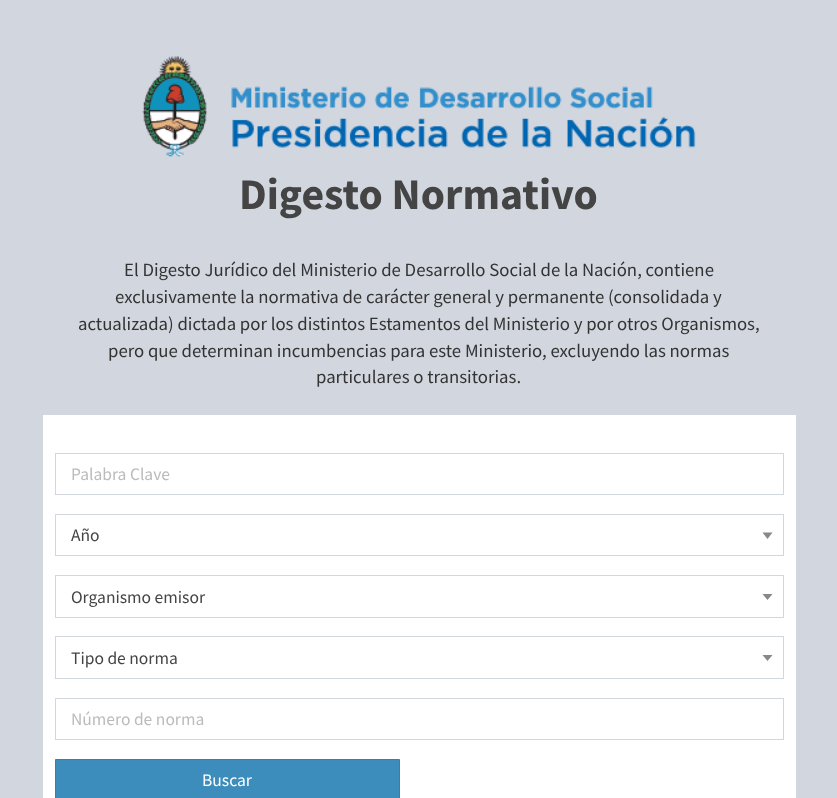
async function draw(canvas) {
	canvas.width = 837;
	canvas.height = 798;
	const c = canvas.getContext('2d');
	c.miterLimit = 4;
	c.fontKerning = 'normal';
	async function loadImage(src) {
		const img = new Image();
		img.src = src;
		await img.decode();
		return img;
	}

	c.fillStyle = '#d2d6de';
	c.fillRect(0, 0, 837, 798);
	c.drawImage(await loadImage('img1.png'), 142, 56, 554, 101);
	c.font = 'bold 43.75px Source Sans Pro';
	c.fillStyle = '#444';
	c.fillText('Digesto Normativo', 239, 209);
	c.font = '18.75px Source Sans Pro';
	c.fillStyle = '#333';
	for (const [text, x, y] of [
		['El Digesto Jurídico del Ministerio de Desarrollo Social de la Nación, contiene', 124, 276],
		['exclusivamente la normativa de carácter general y permanente (consolidada y', 115, 303],
		['actualizada) dictada por los distintos Estamentos del Ministerio y por otros Organismos,', 78, 330],
		['pero que determinan incumbencias para este Ministerio, excluyendo las normas', 108, 357],
		['particulares o transitorias.', 316, 383],
	]) {
		c.fillText(text, x, y);
	}
	c.fillStyle = '#fff';
	c.fillRect(43, 415, 753, 383);
	c.strokeStyle = '#d2d6de';
	c.strokeRect(55.5, 453.5, 728, 41);
	c.font = '17.5px Source Sans Pro';
	c.fillStyle = '#bbb';
	c.fillText('Palabra Clave', 71, 480);
	c.strokeRect(55.5, 514.5, 728, 41);
	c.fillStyle = '#444';
	c.fillText('Año', 71, 541);
	c.fillStyle = '#888';
	c.beginPath();
	c.moveTo(762.5, 532.5);
	c.lineTo(772.5, 532.5);
	c.lineTo(767.5, 539);
	c.closePath();
	c.fill();
	c.strokeRect(55.5, 575.5, 728, 42);
	c.fillStyle = '#444';
	c.fillText('Organismo emisor', 71, 603);
	c.fillStyle = '#888';
	c.beginPath();
	c.moveTo(762.5, 594);
	c.lineTo(772.5, 594);
	c.lineTo(767.5, 600);
	c.closePath();
	c.fill();
	c.strokeRect(55.5, 636.5, 728, 42);
	c.fillStyle = '#444';
	c.fillText('Tipo de norma', 71, 664);
	c.fillStyle = '#888';
	c.beginPath();
	c.moveTo(762.5, 655);
	c.lineTo(772.5, 655);
	c.lineTo(767.5, 661);
	c.closePath();
	c.fill();
	c.strokeRect(55.5, 698.5, 728, 41);
	c.fillStyle = '#bbb';
	c.fillText('Número de norma', 71, 725);
	c.fillStyle = '#3c8dbc';
	c.beginPath();
	c.rect(55.5, 759.5, 344, 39);
	c.fill();
	c.strokeStyle = '#367fa9';
	c.stroke();
	c.fillStyle = '#fff';
	c.fillText('Buscar', 202, 786);
}

draw(document.querySelector('canvas'));
